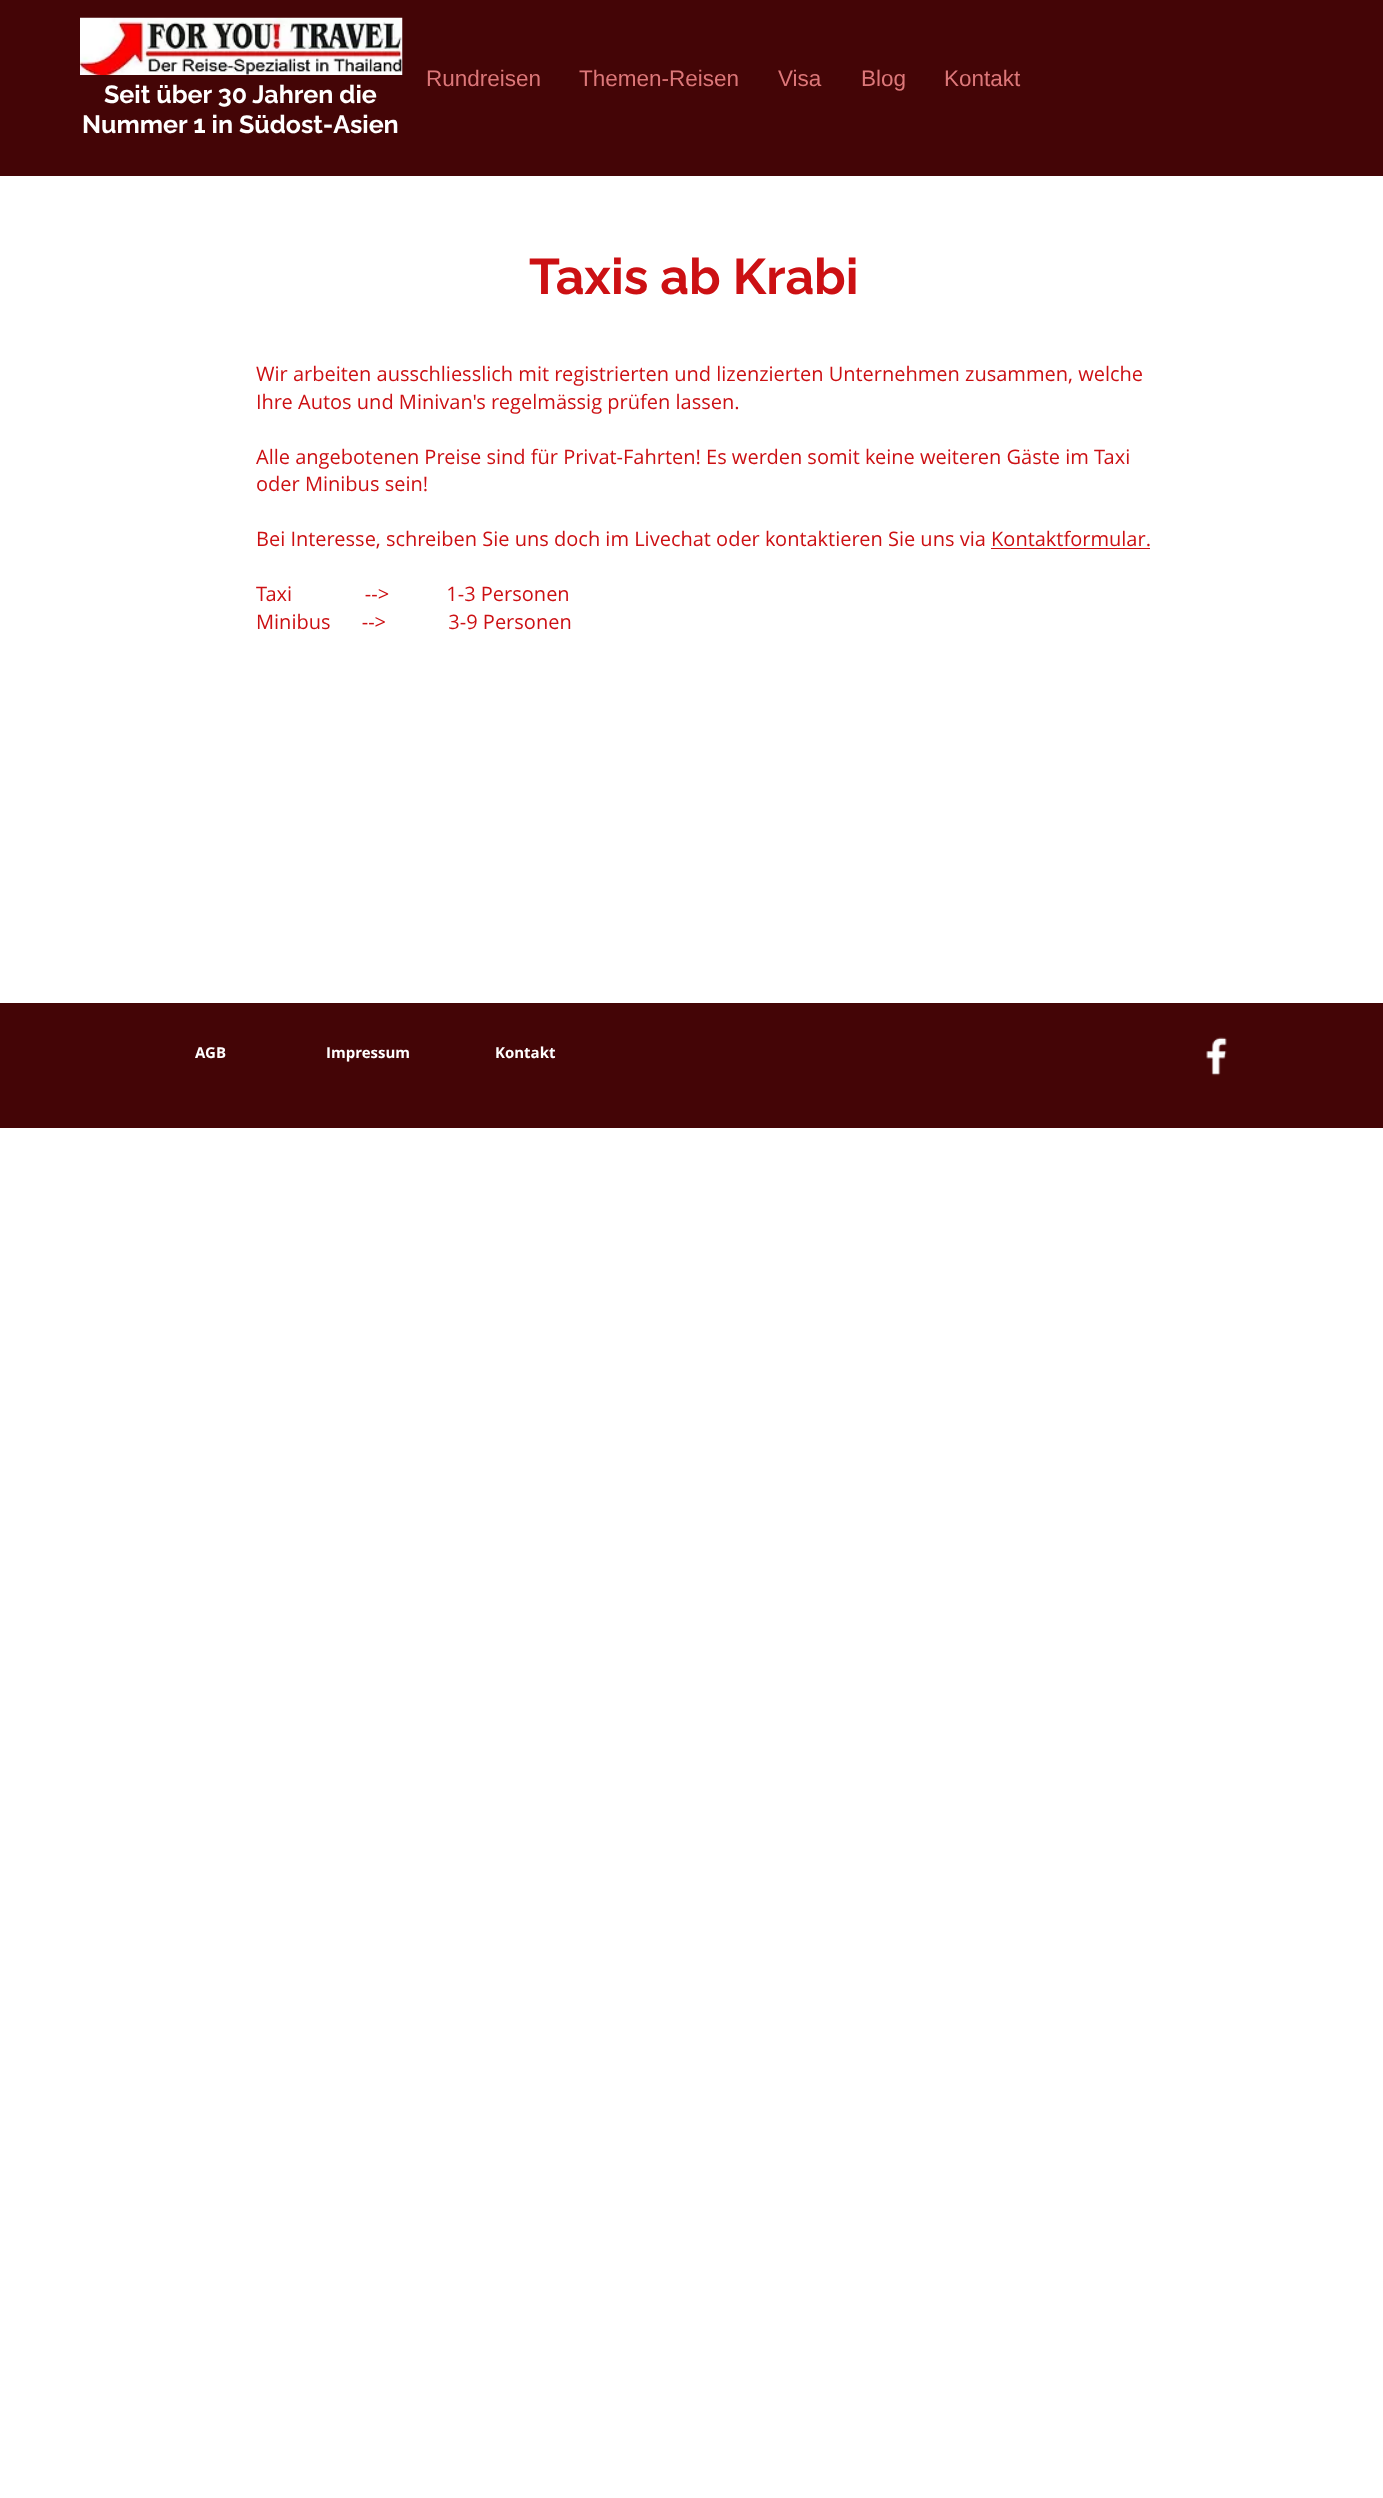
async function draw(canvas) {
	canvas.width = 1383;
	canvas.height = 2498;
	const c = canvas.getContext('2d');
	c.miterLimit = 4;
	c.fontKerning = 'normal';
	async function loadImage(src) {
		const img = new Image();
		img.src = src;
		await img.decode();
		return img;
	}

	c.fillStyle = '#fff';
	c.fillRect(0, 0, 1383, 2498);
	c.fillStyle = '#440506';
	c.fillRect(0, 0, 1383, 176);
	c.drawImage(await loadImage('img1.png'), 80, 17, 323, 58);
	c.font = '22.5px Liberation Sans';
	c.fillStyle = '#dd7779';
	for (const [text, x, y] of [
		['Rundreisen', 426, 86],
		['Themen-Reisen', 579, 86],
		['Visa', 778, 86],
		['Blog', 861, 86],
		['Kontakt', 944, 86],
	]) {
		c.fillText(text, x, y);
	}
	c.font = 'bold 25px Raleway';
	c.fillStyle = '#fff';
	c.fillText('Seit über 30 Jahren die', 104, 103);
	c.fillText('Nummer 1 in Südost-Asien', 82, 133);
	c.font = 'bold 50px Raleway';
	c.fillStyle = '#cc1013';
	c.fillText('Taxis ab Krabi', 529, 294);
	c.font = '20px Open Sans';
	for (const [text, x, y] of [
		['Wir arbeiten ausschliesslich mit registrierten und lizenzierten Unternehmen zusammen, welche', 256, 381],
		['Ihre Autos und Minivan\'s regelmässig prüfen lassen.', 256, 409],
		['Alle angebotenen Preise sind für Privat-Fahrten! Es werden somit keine weiteren Gäste im Taxi', 256, 464],
		['oder Minibus sein!', 256, 491],
		['Bei Interesse, schreiben Sie uns doch im Livechat oder kontaktieren Sie uns via Kontaktformular.', 256, 546],
	]) {
		c.fillText(text, x, y);
	}
	c.fillRect(991, 548, 159, 1);
	c.fillText('Taxi              -->           1-3 Personen', 256, 601);
	c.fillText('Minibus      -->            3-9 Personen', 256, 629);
	c.fillStyle = '#440506';
	c.fillRect(0, 1003, 1383, 125);
	c.font = 'bold 15px Open Sans';
	c.fillStyle = '#fff';
	for (const [text, x, y] of [
		['AGB', 195, 1058],
		['Impressum', 326, 1058],
		['Kontakt', 495, 1058],
	]) {
		c.fillText(text, x, y);
	}
	c.drawImage(await loadImage('img2.png'), 1206, 1037, 21, 39);
}

draw(document.querySelector('canvas'));
